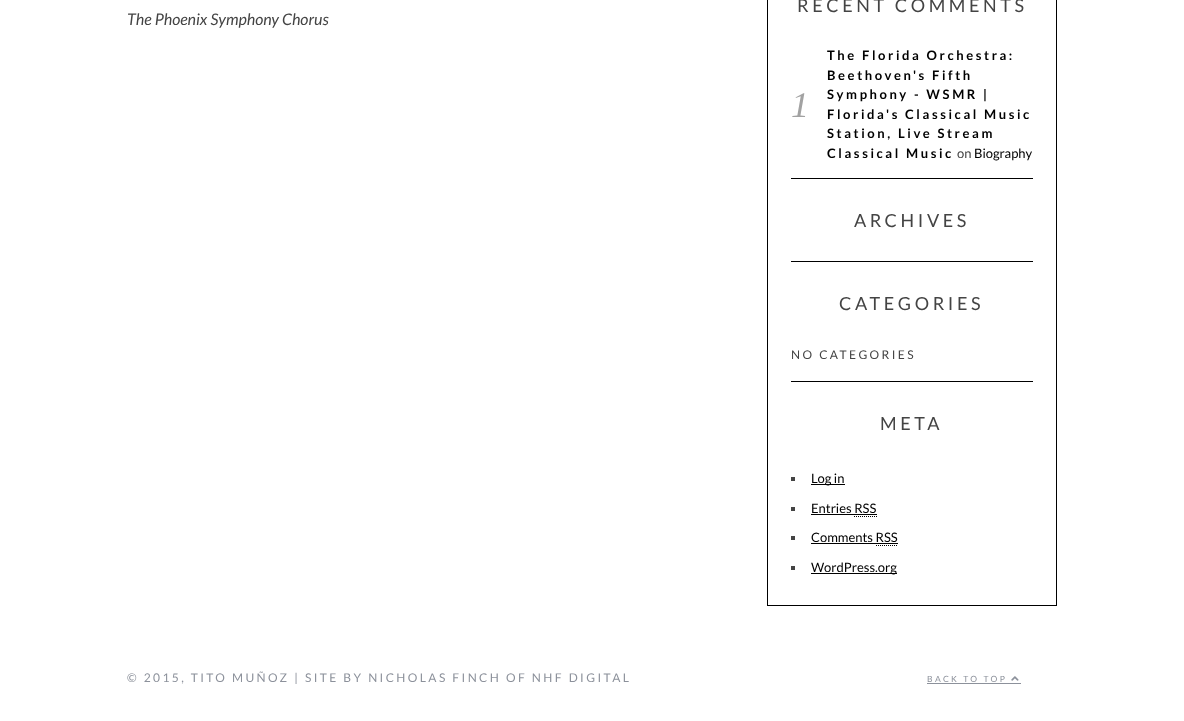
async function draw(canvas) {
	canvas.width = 1184;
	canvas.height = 721;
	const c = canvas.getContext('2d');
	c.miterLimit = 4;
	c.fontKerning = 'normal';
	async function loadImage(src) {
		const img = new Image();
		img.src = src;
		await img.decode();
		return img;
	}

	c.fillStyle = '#fff';
	c.fillRect(0, 0, 1184, 721);
	c.font = 'italic 16px Lato';
	c.fillStyle = '#444';
	c.fillText('The Phoenix Symphony Chorus', 127, 25);
	c.strokeStyle = '#000';
	c.strokeRect(767.5, -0.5, 289, 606);
	c.letterSpacing = '3.6px';
	c.font = '18px Lato';
	c.fillText('RECENT COMMENTS', 797, 12);
	c.letterSpacing = '2.6px';
	c.font = 'bold 13px Lato';
	c.fillStyle = '#000';
	c.fillText('The Florida Orchestra:', 827, 60);
	c.fillText('Beethoven\'s Fifth', 827, 80);
	c.letterSpacing = '0px';
	c.font = 'italic 36px Liberation Serif';
	c.fillStyle = '#a2a2a2';
	c.fillText('1', 791, 117);
	c.letterSpacing = '2.6px';
	c.font = 'bold 13px Lato';
	c.fillStyle = '#000';
	for (const [text, x, y] of [
		['Symphony - WSMR |', 827, 99],
		['Florida\'s Classical Music', 827, 119],
		['Station, Live Stream', 827, 138],
		['Classical Music', 827, 158],
	]) {
		c.fillText(text, x, y);
	}
	c.letterSpacing = '0px';
	c.font = '13px Lato';
	c.fillStyle = '#444';
	c.fillText('on', 957, 158);
	c.fillStyle = '#000';
	c.fillText('Biography', 974, 158);
	c.fillRect(791, 178, 242, 1);
	c.letterSpacing = '3.6px';
	c.font = '18px Lato';
	c.fillStyle = '#444';
	c.fillText('ARCHIVES', 854, 227);
	c.fillStyle = '#000';
	c.fillRect(791, 261, 242, 1);
	c.fillStyle = '#444';
	c.fillText('CATEGORIES', 839, 310);
	c.letterSpacing = '2.4px';
	c.font = '12px Lato';
	c.fillText('NO CATEGORIES', 791, 359);
	c.fillStyle = '#000';
	c.fillRect(791, 381, 242, 1);
	c.letterSpacing = '3.6px';
	c.font = '18px Lato';
	c.fillStyle = '#444';
	c.fillText('META', 880, 430);
	c.fillRect(791, 477, 4, 4);
	c.fillStyle = '#000';
	c.fillRect(811, 484, 34, 1);
	c.letterSpacing = '0px';
	c.font = '13px Lato';
	c.fillText('Log in', 811, 483);
	c.fillStyle = '#444';
	c.fillRect(791, 507, 4, 4);
	c.fillStyle = '#000';
	c.fillText('Entries RSS', 811, 513);
	c.fillRect(811, 514, 66, 1);
	c.beginPath();
	c.moveTo(854, 516.5);
	c.lineTo(877, 516.5);
	c.setLineDash([1, 1]);
	c.stroke();
	c.fillStyle = '#444';
	c.fillRect(791, 536, 4, 4);
	c.fillStyle = '#000';
	c.fillText('Comments RSS', 811, 542);
	c.fillRect(811, 543, 65, 1);
	c.beginPath();
	c.moveTo(876, 545.5);
	c.lineTo(898, 545.5);
	c.moveTo(875.5, 543.5);
	c.lineTo(898, 543.5);
	c.stroke();
	for (const [x, y, w, h, color] of [
		[876, 543, 22, 1, '#000'],
		[791, 566, 4, 4, '#444'],
		[811, 573, 86, 1, '#000'],
	]) {
		c.fillStyle = color;
		c.fillRect(x, y, w, h);
	}
	c.fillText('WordPress.org', 811, 572);
	c.letterSpacing = '2.4px';
	c.font = '12px Lato';
	c.fillStyle = '#8c919b';
	c.fillText('© 2015, TITO MUÑOZ | SITE BY NICHOLAS FINCH OF NHF DIGITAL', 127, 682);
	c.font = '8.5px Lato';
	c.fillText('BACK TO TOP', 927, 682);
	c.fillRect(927, 683, 94, 1);
	c.drawImage(await loadImage('img1.png'), 1011, 676, 8, 5);
}

draw(document.querySelector('canvas'));
